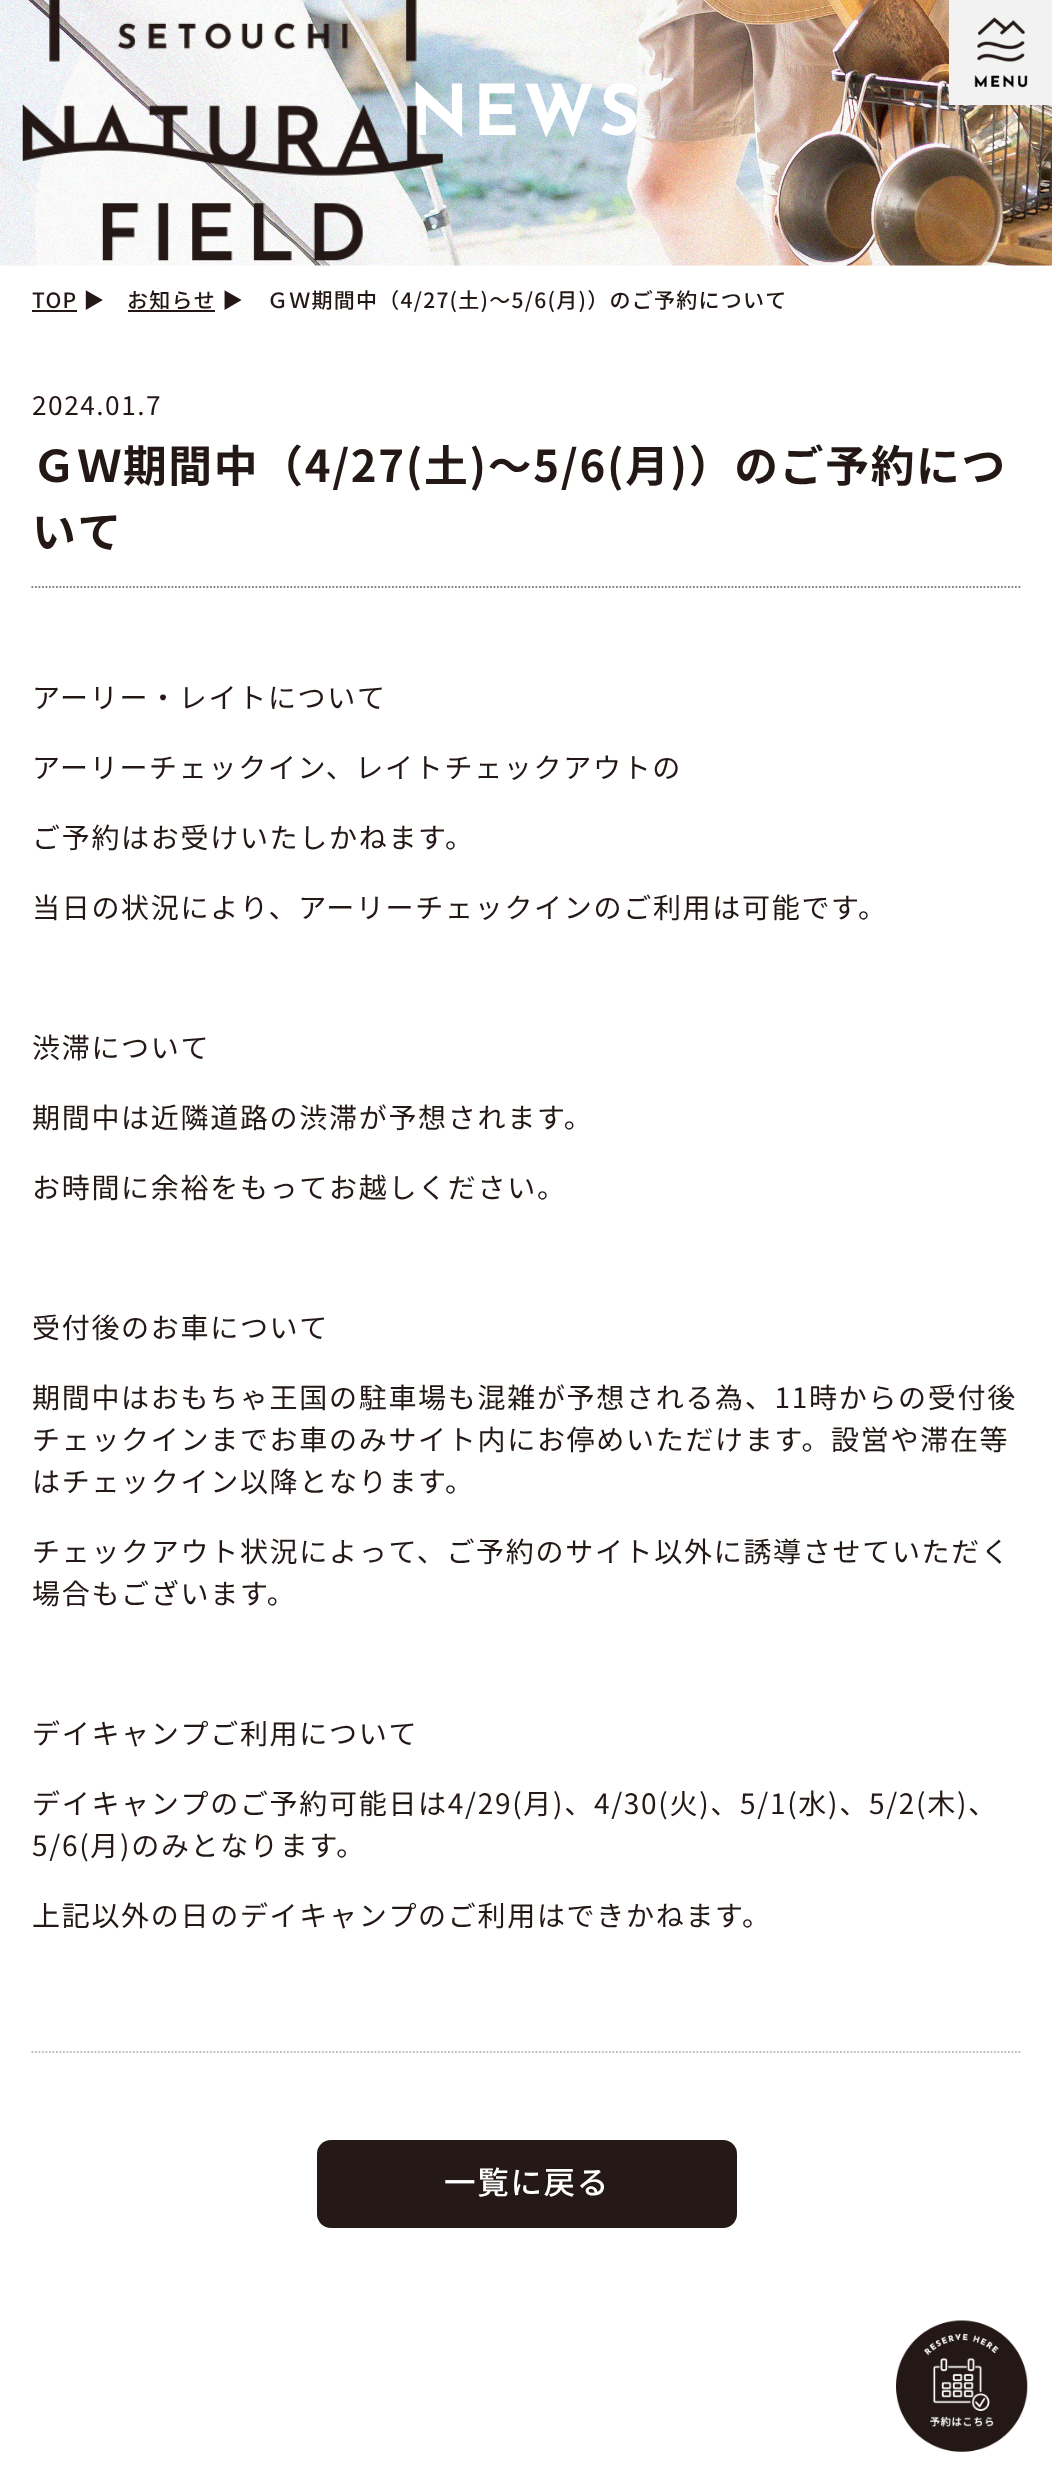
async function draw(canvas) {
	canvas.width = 1052;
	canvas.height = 2477;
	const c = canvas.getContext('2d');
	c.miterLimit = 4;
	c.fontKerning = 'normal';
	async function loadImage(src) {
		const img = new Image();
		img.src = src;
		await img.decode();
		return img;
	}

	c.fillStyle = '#fff';
	c.fillRect(0, 0, 1052, 2477);
	c.drawImage(await loadImage('img3.png'), 0, 0, 1052, 266);
	c.letterSpacing = '4px';
	c.font = 'bold 70px Josefin Sans';
	c.fillText('NEWS', 409, 135);
	c.drawImage(await loadImage('img1.png'), 22, 0, 421, 261);
	c.fillStyle = '#f2f2f2';
	c.fillRect(949, 0, 103, 105);
	c.drawImage(await loadImage('img2.png'), 974, 17, 54, 71);
	c.letterSpacing = '1.25px';
	c.font = '500 21px Noto Sans JP';
	c.fillStyle = '#231815';
	c.fillText('TOP ▶︎', 32, 308);
	c.fillRect(32, 310, 45, 2);
	c.fillText('お知らせ ▶︎', 127, 308);
	c.fillRect(128, 310, 87, 2);
	c.fillText('ＧＷ期間中（4/27(土)～5/6(月)）のご予約について', 267, 308);
	c.beginPath();
	c.moveTo(31.5, 587);
	c.lineTo(1022, 587);
	c.strokeStyle = '#828282';
	c.lineWidth = 1.8;
	c.setLineDash([1.75, 1.75]);
	c.stroke();
	c.letterSpacing = '1.5px';
	c.font = '26.25px Noto Sans JP';
	c.fillText('2024.01.7', 32, 415);
	c.letterSpacing = '1.7px';
	c.font = 'bold 43.75px Noto Sans JP';
	c.fillText('ＧＷ期間中（4/27(土)～5/6(月)）のご予約につ', 32, 482);
	c.fillText('いて', 32, 548);
	c.font = '28px Noto Sans JP';
	for (const [text, x, y] of [
		['アーリー・レイトについて', 32, 708],
		['アーリーチェックイン、レイトチェックアウトの', 32, 778],
		['ご予約はお受けいたしかねます。', 32, 848],
		['当日の状況により、アーリーチェックインのご利用は可能です。', 32, 918],
		['渋滞について', 32, 1058],
		['期間中は近隣道路の渋滞が予想されます。', 32, 1128],
		['お時間に余裕をもってお越しください。', 32, 1198],
		['受付後のお車について', 32, 1338],
		['期間中はおもちゃ王国の駐車場も混雑が予想される為、11時からの受付後', 32, 1408],
		['チェックインまでお車のみサイト内にお停めいただけます。設営や滞在等', 32, 1450],
		['はチェックイン以降となります。', 32, 1492],
		['チェックアウト状況によって、ご予約のサイト以外に誘導させていただく', 32, 1562],
		['場合もございます。', 32, 1604],
		['デイキャンプご利用について', 32, 1744],
		['デイキャンプのご予約可能日は4/29(月)、4/30(火)、5/1(水)、5/2(木)、', 32, 1814],
		['5/6(月)のみとなります。', 32, 1856],
		['上記以外の日のデイキャンプのご利用はできかねます。', 32, 1926],
	]) {
		c.fillText(text, x, y);
	}
	c.beginPath();
	c.moveTo(31.5, 2052);
	c.lineTo(1022, 2052);
	c.strokeStyle = '#bdbdbd';
	c.stroke();
	c.fillStyle = '#241916';
	c.beginPath();
	c.roundRect(317, 2140, 420, 88, 14);
	c.fill();
	c.font = '500 31.5px Noto Sans JP';
	c.fillStyle = '#fff';
	c.fillText('一覧に戻る', 444, 2194);
	c.drawImage(await loadImage('img4.png'), 896, 2320, 132, 132);
}

draw(document.querySelector('canvas'));
